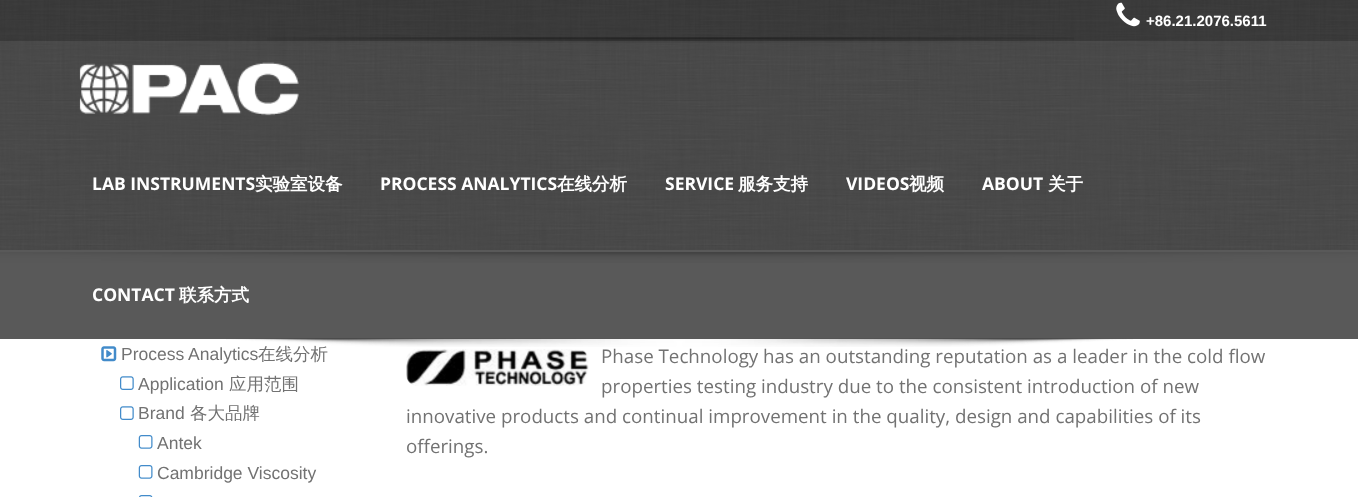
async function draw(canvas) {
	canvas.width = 1358;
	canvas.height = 497;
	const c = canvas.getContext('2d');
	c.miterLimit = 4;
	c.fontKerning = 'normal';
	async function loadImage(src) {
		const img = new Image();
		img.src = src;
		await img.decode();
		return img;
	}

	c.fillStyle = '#fff';
	c.fillRect(0, 0, 1358, 497);
	c.fillStyle = '#595959';
	c.fillRect(0, 0, 1358, 339);
	c.drawImage(await loadImage('img1.png'), 0, 0, 1358, 250);
	c.fillStyle = '#00000033';
	c.fillRect(0, 0, 1358, 41);
	c.drawImage(await loadImage('img2.png'), 1116, 2, 24, 25);
	c.font = 'bold 15px Liberation Sans';
	c.fillStyle = '#fff';
	c.fillText('+86.21.2076.5611', 1146, 26);
	c.drawImage(await loadImage('img3.png'), 267, 37, 807, 6);
	c.drawImage(await loadImage('img4.png'), 79, 62, 220, 54);
	c.font = 'bold 17.5px Open Sans';
	c.fillText('LAB INSTRUMENTS', 92, 190);
	c.font = 'bold 17.5px WenQuanYi Zen Hei';
	c.fillText('实验室设备', 255, 190);
	c.font = 'bold 17.5px Open Sans';
	c.fillText('PROCESS ANALYTICS', 380, 190);
	c.font = 'bold 17.5px WenQuanYi Zen Hei';
	c.fillText('在线分析', 557, 190);
	c.font = 'bold 17.5px Open Sans';
	c.fillText('SERVICE', 665, 190);
	c.font = 'bold 17.5px WenQuanYi Zen Hei';
	c.fillText('服务支持', 738, 190);
	c.font = 'bold 17.5px Open Sans';
	c.fillText('VIDEOS', 846, 190);
	c.font = 'bold 17.5px WenQuanYi Zen Hei';
	c.fillText('视频', 909, 190);
	c.font = 'bold 17.5px Open Sans';
	c.fillText('ABOUT', 982, 190);
	c.font = 'bold 17.5px WenQuanYi Zen Hei';
	c.fillText('关于', 1048, 190);
	c.font = 'bold 17.5px Open Sans';
	c.fillText('CONTACT', 92, 301);
	c.font = 'bold 17.5px WenQuanYi Zen Hei';
	c.fillText('联系方式', 179, 301);
	c.font = '500 17.5px WenQuanYi Zen Hei';
	c.fillStyle = '#727272';
	c.fillText('在线分析', 258, 360);
	c.drawImage(await loadImage('img5.png'), 226, 338, 907, 9);
	c.drawImage(await loadImage('img6.png'), 0, 252, 1358, 11);
	c.drawImage(await loadImage('img7.png'), 101, 346, 16, 16);
	c.font = '17.5px Liberation Sans';
	c.fillText('Process Analytics', 121, 360);
	c.drawImage(await loadImage('img8.png'), 120, 376, 14, 14);
	c.fillText('Application', 138, 390);
	c.font = '500 17.5px WenQuanYi Zen Hei';
	c.fillText('应用范围', 229, 390);
	c.drawImage(await loadImage('img8.png'), 120, 406, 14, 14);
	c.font = '17.5px Liberation Sans';
	c.fillText('Brand', 138, 419);
	c.font = '500 17.5px WenQuanYi Zen Hei';
	c.fillText('各大品牌', 190, 419);
	c.drawImage(await loadImage('img9.png'), 138, 435, 15, 14);
	c.font = '17.5px Liberation Sans';
	c.fillText('Antek', 157, 449);
	c.drawImage(await loadImage('img9.png'), 138, 465, 15, 14);
	c.fillText('Cambridge Viscosity', 157, 479);
	c.drawImage(await loadImage('img10.png'), 139, 495, 14, 2);
	c.font = '18.75px Open Sans';
	for (const [text, x, y] of [
		['Phase Technology has an outstanding reputation as a leader in the cold flow', 601, 363],
		['properties testing industry due to the consistent introduction of new', 601, 393],
		['innovative products and continual improvement in the quality, design and capabilities of its', 406, 423],
		['offerings.', 406, 453],
	]) {
		c.fillText(text, x, y);
	}
	c.drawImage(await loadImage('img11.png'), 406, 349, 183, 37);
}

draw(document.querySelector('canvas'));
